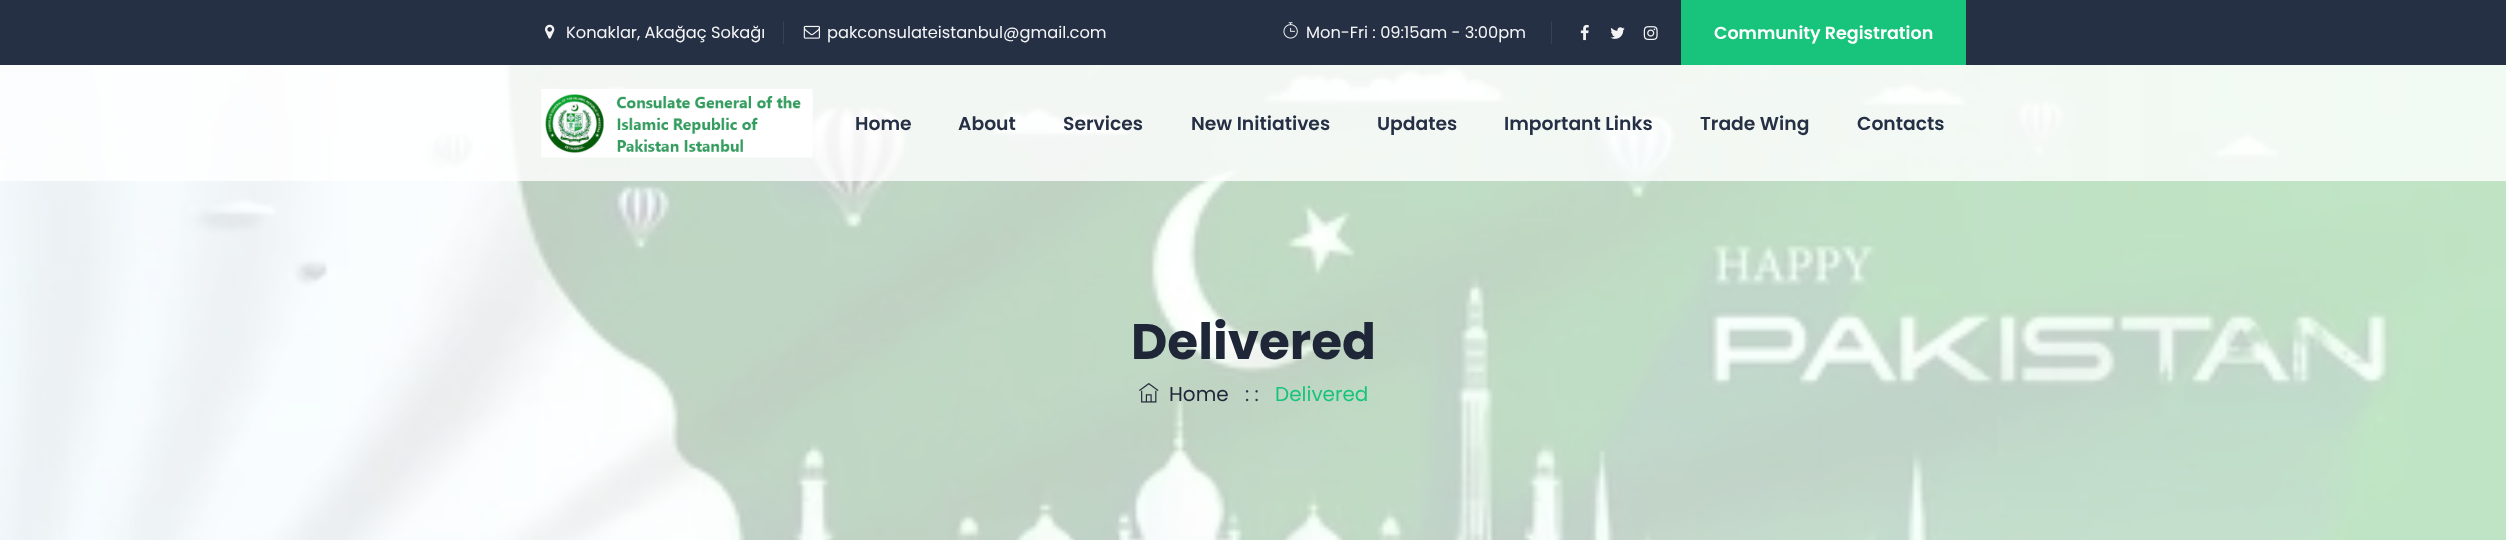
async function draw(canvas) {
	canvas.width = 2506;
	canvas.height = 558;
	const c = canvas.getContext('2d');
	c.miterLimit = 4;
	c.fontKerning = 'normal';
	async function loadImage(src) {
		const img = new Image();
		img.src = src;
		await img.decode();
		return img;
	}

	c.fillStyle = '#fff';
	c.fillRect(0, 0, 2506, 558);
	c.fillStyle = '#263045';
	c.fillRect(0, 0, 2506, 65);
	c.drawImage(await loadImage('img1.png'), 545, 24, 10, 15);
	c.font = '16.25px Poppins';
	c.fillStyle = '#f4f5f6';
	c.fillText('Konaklar, Akağaç Sokağı', 566, 38);
	c.fillStyle = '#374154';
	c.fillRect(783, 21, 1, 23);
	c.drawImage(await loadImage('img2.png'), 803, 25, 17, 14);
	c.fillStyle = '#f4f5f6';
	c.fillText('pakconsulateistanbul@gmail.com', 827, 38);
	c.drawImage(await loadImage('img3.png'), 1283, 22, 15, 17);
	c.fillText('Mon-Fri : 09:15am - 3:00pm', 1306, 38);
	c.fillStyle = '#374154';
	c.fillRect(1551, 21, 1, 23);
	c.drawImage(await loadImage('img4.png'), 1580, 24, 9, 17);
	c.drawImage(await loadImage('img5.png'), 1610, 27, 15, 12);
	c.drawImage(await loadImage('img6.png'), 1643, 26, 15, 14);
	c.fillStyle = '#18c47c';
	c.fillRect(1681, 0, 285, 65);
	c.font = '600 17.5px Poppins';
	c.fillStyle = '#fff';
	c.fillText('Community Registration', 1714, 39);
	c.drawImage(await loadImage('img8.png'), 0, 65, 2506, 475);
	c.fillStyle = '#ffffffcc';
	c.fillRect(0, 65, 2506, 116);
	c.drawImage(await loadImage('img7.png'), 541, 89, 272, 69);
	c.font = '600 18.75px Poppins';
	c.fillStyle = '#263045';
	for (const [text, x, y] of [
		['Home', 855, 130],
		['About', 958, 130],
		['Services', 1063, 130],
		['New Initiatives', 1191, 130],
		['Updates', 1377, 130],
		['Important Links', 1504, 130],
		['Trade Wing', 1700, 130],
		['Contacts', 1857, 130],
	]) {
		c.fillText(text, x, y);
	}
	c.font = 'bold 50px Poppins';
	c.fillStyle = '#1e2637';
	c.fillText('Delivered', 1131, 359);
	c.drawImage(await loadImage('img9.png'), 1139, 383, 20, 20);
	c.font = '20px Poppins';
	c.fillText('Home', 1169, 401);
	c.fillStyle = '#2e3745';
	c.fillText(': :', 1245, 401);
	c.fillStyle = '#18c47c';
	c.fillText('Delivered', 1275, 401);
}

draw(document.querySelector('canvas'));
